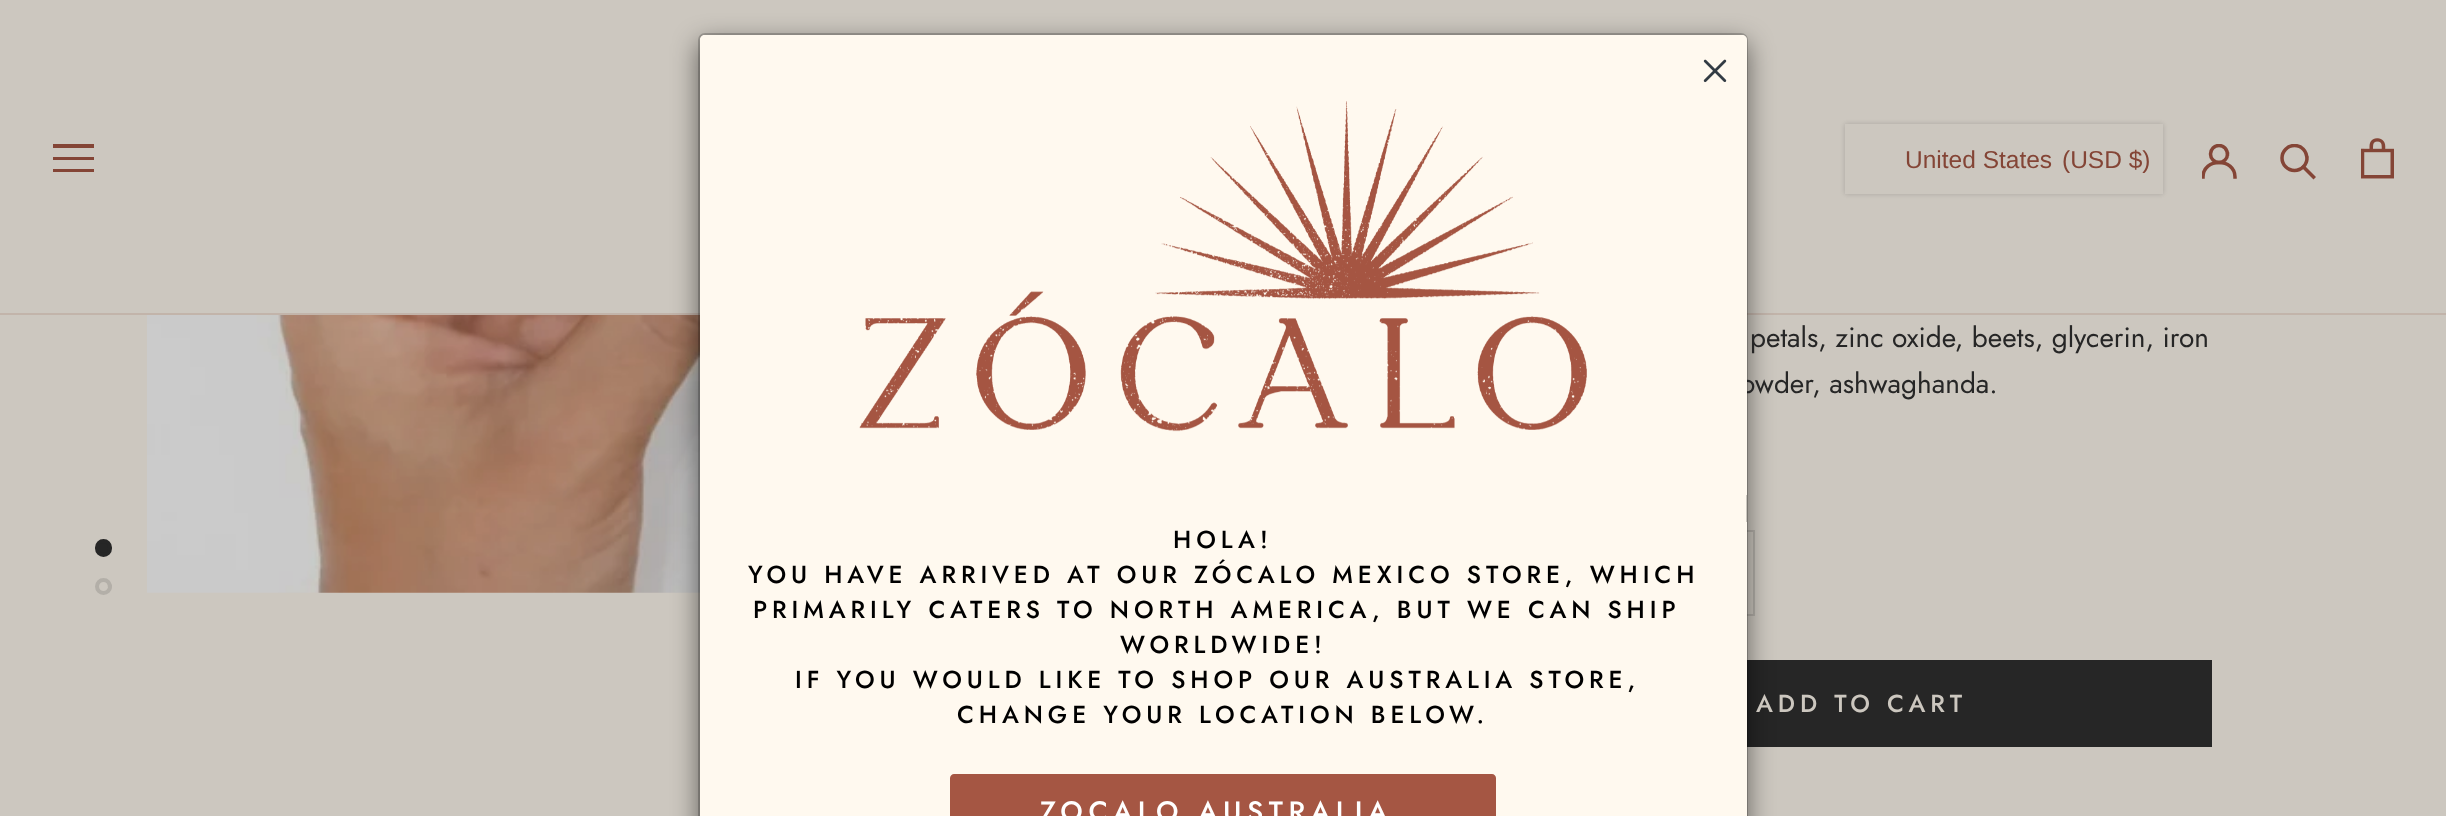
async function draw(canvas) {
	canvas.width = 2446;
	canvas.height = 816;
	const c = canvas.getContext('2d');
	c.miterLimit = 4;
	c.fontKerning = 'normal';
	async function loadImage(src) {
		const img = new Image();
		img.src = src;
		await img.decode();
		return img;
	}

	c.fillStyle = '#ccc7bf';
	c.fillRect(0, 0, 2446, 816);
	c.fillStyle = '#c2b4aa';
	c.fillRect(0, 313, 2446, 2);
	c.drawImage(await loadImage('img4.png'), 147, 315, 553, 278);
	c.strokeStyle = '#b3afa8';
	c.lineWidth = 2;
	c.strokeRect(1513, 531, 241, 84);
	c.strokeStyle = '#262626';
	c.strokeRect(1513, 661, 698, 85);
	c.fillStyle = '#262626';
	c.fillRect(1747, 662, 463, 83);
	c.fillStyle = '#00000080';
	c.filter = 'blur(13px)';
	c.beginPath();
	c.roundRect(698, 42, 1050, 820, 7);
	c.fill();
	c.filter = 'none';
	c.font = '28px Jost';
	c.fillStyle = '#262626';
	c.fillText('owder, ashwaghanda.', 1740, 393);
	c.fillStyle = '#fff9ef';
	c.beginPath();
	c.moveTo(705, 35);
	c.lineTo(1742, 35);
	c.bezierCurveTo(1745, 35, 1747, 37, 1747, 40);
	c.lineTo(1747, 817);
	c.lineTo(700, 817);
	c.lineTo(700, 40);
	c.bezierCurveTo(700, 37, 702, 35, 705, 35);
	c.closePath();
	c.fill();
	c.beginPath();
	c.roundRect(699, 34, 1048, 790, 6);
	c.strokeStyle = '#00000033';
	c.stroke();
	c.beginPath();
	c.roundRect(700, 35, 1047, 460, [5, 5, 0, 0]);
	c.fill();
	c.drawImage(await loadImage('img1.png'), 1703, 59, 24, 24);
	c.drawImage(await loadImage('img2.png'), 859, 101, 728, 331);
	c.fillRect(1746, 522, 1, 294);
	c.letterSpacing = '4.9px';
	c.font = '500 24.5px Jost';
	c.fillStyle = '#000';
	for (const [text, x, y] of [
		['HOLA!', 1173, 548],
		['YOU HAVE ARRIVED AT OUR ZÓCALO MEXICO STORE, WHICH', 748, 583],
		['PRIMARILY CATERS TO NORTH AMERICA, BUT WE CAN SHIP', 753, 618],
		['WORLDWIDE!', 1120, 653],
		['IF YOU WOULD LIKE TO SHOP OUR AUSTRALIA STORE,', 795, 688],
		['CHANGE YOUR LOCATION BELOW.', 957, 723],
	]) {
		c.fillText(text, x, y);
	}
	c.fillStyle = '#a55643';
	c.beginPath();
	c.moveTo(954, 774);
	c.lineTo(1492, 774);
	c.bezierCurveTo(1494, 774, 1496, 776, 1496, 778);
	c.lineTo(1496, 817);
	c.lineTo(950, 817);
	c.lineTo(950, 778);
	c.bezierCurveTo(950, 776, 952, 774, 954, 774);
	c.closePath();
	c.fill();
	c.letterSpacing = '5.6px';
	c.font = '500 28px Jost';
	c.fillStyle = '#fff';
	c.fillText('ZOCALO AUSTRALIA', 1040, 821);
	c.save();
	c.beginPath();
	c.rect(53, 144, 42, 29);
	c.clip();
	c.fillStyle = '#844536';
	c.beginPath();
	c.moveTo(52, 172);
	c.lineTo(52, 169);
	c.lineTo(94, 169);
	c.lineTo(94, 172);
	c.closePath();
	c.moveTo(52, 157);
	c.lineTo(94, 157);
	c.lineTo(94, 160);
	c.lineTo(52, 160);
	c.closePath();
	c.moveTo(52, 144);
	c.lineTo(94, 144);
	c.lineTo(94, 148);
	c.lineTo(52, 148);
	c.closePath();
	c.fill();
	c.restore();
	c.fillStyle = '#0000000f';
	c.filter = 'blur(2px)';
	c.beginPath();
	c.rect(1845, 124, 318, 70);
	c.fill();
	c.filter = 'none';
	c.fillStyle = '#0000001a';
	c.filter = 'blur(2.5px)';
	c.beginPath();
	c.rect(1845, 124, 318, 70);
	c.fill();
	c.filter = 'none';
	c.fillStyle = '#ccc7bf';
	c.fillRect(1845, 124, 318, 70);
	c.letterSpacing = '0px';
	c.font = '24.5px Liberation Sans';
	c.fillStyle = '#844536';
	c.fillText('United States', 1905, 168);
	c.fillText('(USD $)', 2062, 168);
	c.save();
	c.beginPath();
	c.rect(2202, 144, 35, 35);
	c.clip();
	c.beginPath();
	c.moveTo(2203, 177);
	c.bezierCurveTo(2203, 157.5, 2235, 157.5, 2235, 177);
	c.strokeStyle = '#844536';
	c.lineWidth = 3.5;
	c.lineCap = 'square';
	c.stroke();
	c.beginPath();
	c.arc(2219, 154, 8.5, 0, 2 * Math.PI);
	c.stroke();
	c.restore();
	c.beginPath();
	c.moveTo(2313.5, 177);
	c.lineTo(2303.5, 167);
	c.strokeStyle = '#844536';
	c.lineWidth = 3.5;
	c.lineCap = 'square';
	c.stroke();
	c.save();
	c.beginPath();
	c.rect(2280, 144, 37, 36);
	c.clip();
	c.beginPath();
	c.arc(2294.5, 158, 12.5, 0, 2 * Math.PI);
	c.stroke();
	c.restore();
	c.drawImage(await loadImage('img3.png'), 2361, 138, 33, 41);
	c.fillStyle = '#262626';
	c.beginPath();
	c.roundRect(97, 541, 13, 14, 6.5);
	c.fill();
	c.strokeStyle = '#262626';
	c.lineWidth = 4;
	c.stroke();
	c.beginPath();
	c.arc(103.5, 586.5, 6.5, 0, 2 * Math.PI);
	c.strokeStyle = '#b3afa8';
	c.stroke();
	c.font = '28px Jost';
	c.fillText('petals, zinc oxide, beets, glycerin, iron', 1750, 347);
	c.letterSpacing = '4.9px';
	c.font = '500 24.5px Jost';
	c.fillStyle = '#ccc7bf';
	c.fillText('ADD TO CART', 1756, 712);
}

draw(document.querySelector('canvas'));
